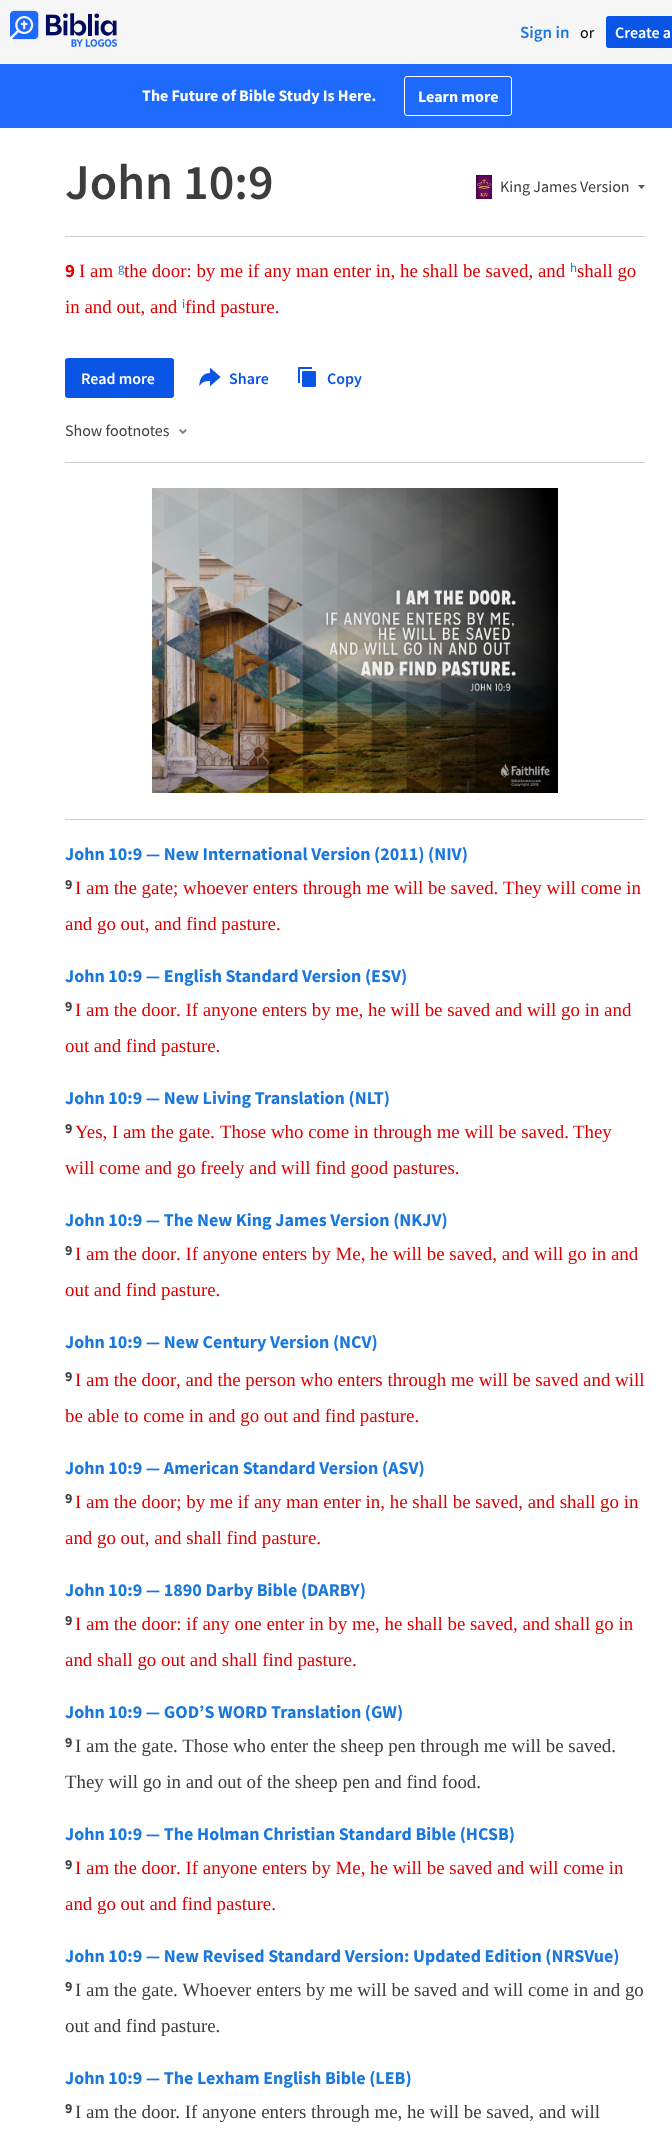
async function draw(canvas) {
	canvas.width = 672;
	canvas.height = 2149;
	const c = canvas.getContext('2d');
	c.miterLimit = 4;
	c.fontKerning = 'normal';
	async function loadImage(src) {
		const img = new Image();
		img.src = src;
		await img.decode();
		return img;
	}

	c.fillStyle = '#f6f6f6';
	c.fillRect(0, 0, 672, 2149);
	c.drawImage(await loadImage('img1.png'), 10, 10, 107, 37);
	c.font = '600 17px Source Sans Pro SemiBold';
	c.fillStyle = '#1977de';
	c.fillText('Sign in', 520, 38);
	c.font = '16px Source Sans Pro';
	c.fillStyle = '#000';
	c.fillText('or', 580, 38);
	c.fillStyle = '#0a55e6';
	c.beginPath();
	c.roundRect(606, 16, 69, 32, 3);
	c.fill();
	c.font = '600 16px Source Sans Pro SemiBold';
	c.fillStyle = '#fff';
	c.fillText('Create a', 615, 38);
	c.fillStyle = '#1e6afe';
	c.fillRect(0, 64, 672, 64);
	c.font = 'bold 16px Source Sans Pro';
	c.fillStyle = '#fff';
	c.fillText('The Future of Bible Study Is Here.', 142, 101);
	c.beginPath();
	c.roundRect(404.5, 76.5, 107, 39, 2.5);
	c.strokeStyle = '#fff';
	c.stroke();
	c.fillText('Learn more', 418, 102);
	c.beginPath();
	c.roundRect(-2, 128, 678, 2021, 4);
	c.fill();
	c.fillStyle = '#ccc';
	c.fillRect(65, 236, 580, 1);
	c.font = '600 50px Source Sans Pro SemiBold';
	c.fillStyle = '#3d3d3d';
	c.fillText('John 10:9', 65, 199);
	c.drawImage(await loadImage('img2.png'), 476, 175, 16, 24);
	c.font = '16px Source Sans Pro';
	c.fillText('King James Version', 500, 192);
	c.fillStyle = '#585858';
	c.beginPath();
	c.moveTo(641.5, 189);
	c.lineTo(645, 185);
	c.lineTo(638, 185);
	c.closePath();
	c.fill('evenodd');
	c.font = 'bold 18.9px Source Sans Pro';
	c.fillStyle = '#d00';
	c.fillText('9', 65, 277);
	c.font = '18.9px Liberation Serif';
	c.fillText('I am', 79, 277);
	c.font = '13px Source Sans Pro';
	c.fillStyle = '#1977de';
	c.fillText('g', 118, 272);
	c.font = '18.9px Liberation Serif';
	c.fillStyle = '#d00';
	c.fillText('the door: by me if any man enter in, he shall be saved, and', 124, 277);
	c.font = '13px Source Sans Pro';
	c.fillStyle = '#1977de';
	c.fillText('h', 570, 272);
	c.font = '18.9px Liberation Serif';
	c.fillStyle = '#d00';
	c.fillText('shall go', 577, 277);
	c.fillText('in and out, and', 65, 313);
	c.font = '13px Source Sans Pro';
	c.fillStyle = '#1977de';
	c.fillText('i', 182, 308);
	c.font = '18.9px Liberation Serif';
	c.fillStyle = '#d00';
	c.fillText('find pasture.', 185, 313);
	c.fillStyle = '#0a55e6';
	c.beginPath();
	c.roundRect(65, 358, 109, 40, 3);
	c.fill();
	c.font = '600 16px Source Sans Pro SemiBold';
	c.fillStyle = '#fff';
	c.fillText('Read more', 81, 384);
	c.drawImage(await loadImage('img3.png'), 199, 367, 22, 20);
	c.fillStyle = '#0a55e6';
	c.fillText('Share', 229, 384);
	c.drawImage(await loadImage('img4.png'), 298, 367, 18, 20);
	c.fillText('Copy', 327, 384);
	c.font = '16px Source Sans Pro';
	c.fillStyle = '#3d3d3d';
	c.fillText('Show footnotes', 65, 436);
	c.drawImage(await loadImage('img5.png'), 179, 429, 8, 6);
	c.fillStyle = '#ccc';
	c.fillRect(65, 462, 580, 1);
	c.drawImage(await loadImage('img6.png'), 152, 488, 406, 305);
	c.fillRect(65, 819, 580, 1);
	c.font = 'bold 18px Source Sans Pro';
	c.fillStyle = '#1977de';
	c.fillText('John 10:9 — New International Version (2011) (NIV)', 65, 860);
	c.font = 'bold 14px Source Sans Pro';
	c.fillStyle = '#3d3d3d';
	c.fillText('9', 65, 889);
	c.font = '18.9px Liberation Serif';
	c.fillStyle = '#d00';
	for (const [text, x, y] of [
		['I am the gate; whoever enters through me will be saved.', 75, 894],
		['They will come in', 503, 894],
		['and go out, and find pasture.', 65, 930],
	]) {
		c.fillText(text, x, y);
	}
	c.font = 'bold 18px Source Sans Pro';
	c.fillStyle = '#1977de';
	c.fillText('John 10:9 — English Standard Version (ESV)', 65, 982);
	c.font = 'bold 14px Source Sans Pro';
	c.fillStyle = '#3d3d3d';
	c.fillText('9', 65, 1011);
	c.font = '18.9px Liberation Serif';
	c.fillStyle = '#d00';
	for (const [text, x, y] of [
		['I am the door', 75, 1016],
		['. If anyone enters by me, he will be saved and will go in and', 176, 1016],
		['out and find pasture.', 65, 1052],
	]) {
		c.fillText(text, x, y);
	}
	c.font = 'bold 18px Source Sans Pro';
	c.fillStyle = '#1977de';
	c.fillText('John 10:9 — New Living Translation (NLT)', 65, 1104);
	c.font = 'bold 14px Source Sans Pro';
	c.fillStyle = '#3d3d3d';
	c.fillText('9', 65, 1133);
	c.font = '18.9px Liberation Serif';
	c.fillStyle = '#d00';
	for (const [text, x, y] of [
		['Yes, I am the gate.', 75, 1138],
		['Those who come in through me will be saved.', 220, 1138],
		['They', 573, 1138],
		['will come and go freely and will find good pastures.', 65, 1174],
	]) {
		c.fillText(text, x, y);
	}
	c.font = 'bold 18px Source Sans Pro';
	c.fillStyle = '#1977de';
	c.fillText('John 10:9 — The New King James Version (NKJV)', 65, 1226);
	c.font = 'bold 14px Source Sans Pro';
	c.fillStyle = '#3d3d3d';
	c.fillText('9', 65, 1255);
	c.font = '18.9px Liberation Serif';
	c.fillStyle = '#d00';
	for (const [text, x, y] of [
		['I am the door', 75, 1260],
		['. If anyone enters by Me, he will be saved, and will go in and', 176, 1260],
		['out and find pasture.', 65, 1296],
	]) {
		c.fillText(text, x, y);
	}
	c.font = 'bold 18px Source Sans Pro';
	c.fillStyle = '#1977de';
	c.fillText('John 10:9 — New Century Version (NCV)', 65, 1348);
	c.font = 'bold 14px Source Sans Pro';
	c.fillStyle = '#3d3d3d';
	c.fillText('9', 65, 1381);
	c.font = '18.9px Liberation Serif';
	c.fillStyle = '#d00';
	for (const [text, x, y] of [
		['I am the door', 75, 1386],
		[', and the person who enters through me will be saved and will', 176, 1386],
		['be able to come in and go out and find pasture.', 65, 1422],
	]) {
		c.fillText(text, x, y);
	}
	c.font = 'bold 18px Source Sans Pro';
	c.fillStyle = '#1977de';
	c.fillText('John 10:9 — American Standard Version (ASV)', 65, 1474);
	c.font = 'bold 14px Source Sans Pro';
	c.fillStyle = '#3d3d3d';
	c.fillText('9', 65, 1503);
	c.font = '18.9px Liberation Serif';
	c.fillStyle = '#d00';
	c.fillText('I am the door; by me if any man enter in, he shall be saved, and shall go in', 75, 1508);
	c.fillText('and go out, and shall find pasture.', 65, 1544);
	c.font = 'bold 18px Source Sans Pro';
	c.fillStyle = '#1977de';
	c.fillText('John 10:9 — 1890 Darby Bible (DARBY)', 65, 1596);
	c.font = 'bold 14px Source Sans Pro';
	c.fillStyle = '#3d3d3d';
	c.fillText('9', 65, 1625);
	c.font = '18.9px Liberation Serif';
	c.fillStyle = '#d00';
	c.fillText('I am the door: if any one enter in by me, he shall be saved, and shall go in', 75, 1630);
	c.fillText('and shall go out and shall find pasture.', 65, 1666);
	c.font = 'bold 18px Source Sans Pro';
	c.fillStyle = '#1977de';
	c.fillText('John 10:9 — GOD’S WORD Translation (GW)', 65, 1718);
	c.font = 'bold 14px Source Sans Pro';
	c.fillStyle = '#3d3d3d';
	c.fillText('9', 65, 1747);
	c.font = '18.9px Liberation Serif';
	c.fillText('I am the gate. Those who enter the sheep pen through me will be saved.', 75, 1752);
	c.fillText('They will go in and out of the sheep pen and find food.', 65, 1788);
	c.font = 'bold 18px Source Sans Pro';
	c.fillStyle = '#1977de';
	c.fillText('John 10:9 — The Holman Christian Standard Bible (HCSB)', 65, 1840);
	c.font = 'bold 14px Source Sans Pro';
	c.fillStyle = '#3d3d3d';
	c.fillText('9', 65, 1869);
	c.font = '18.9px Liberation Serif';
	c.fillStyle = '#d00';
	for (const [text, x, y] of [
		['I am the door', 75, 1874],
		['. If anyone enters by Me, he will be saved and will come in', 176, 1874],
		['and go out and find pasture.', 65, 1910],
	]) {
		c.fillText(text, x, y);
	}
	c.font = 'bold 18px Source Sans Pro';
	c.fillStyle = '#1977de';
	c.fillText('John 10:9 — New Revised Standard Version: Updated Edition (NRSVue)', 65, 1962);
	c.font = 'bold 14px Source Sans Pro';
	c.fillStyle = '#3d3d3d';
	c.fillText('9', 65, 1991);
	c.font = '18.9px Liberation Serif';
	c.fillText('I am the gate. Whoever enters by me will be saved and will come in and go', 75, 1996);
	c.fillText('out and find pasture.', 65, 2032);
	c.font = 'bold 18px Source Sans Pro';
	c.fillStyle = '#1977de';
	c.fillText('John 10:9 — The Lexham English Bible (LEB)', 65, 2084);
	c.font = 'bold 14px Source Sans Pro';
	c.fillStyle = '#3d3d3d';
	c.fillText('9', 65, 2113);
	c.font = '18.9px Liberation Serif';
	c.fillText('I am the door. If anyone enters through me, he will be saved, and will', 75, 2118);
}

draw(document.querySelector('canvas'));
